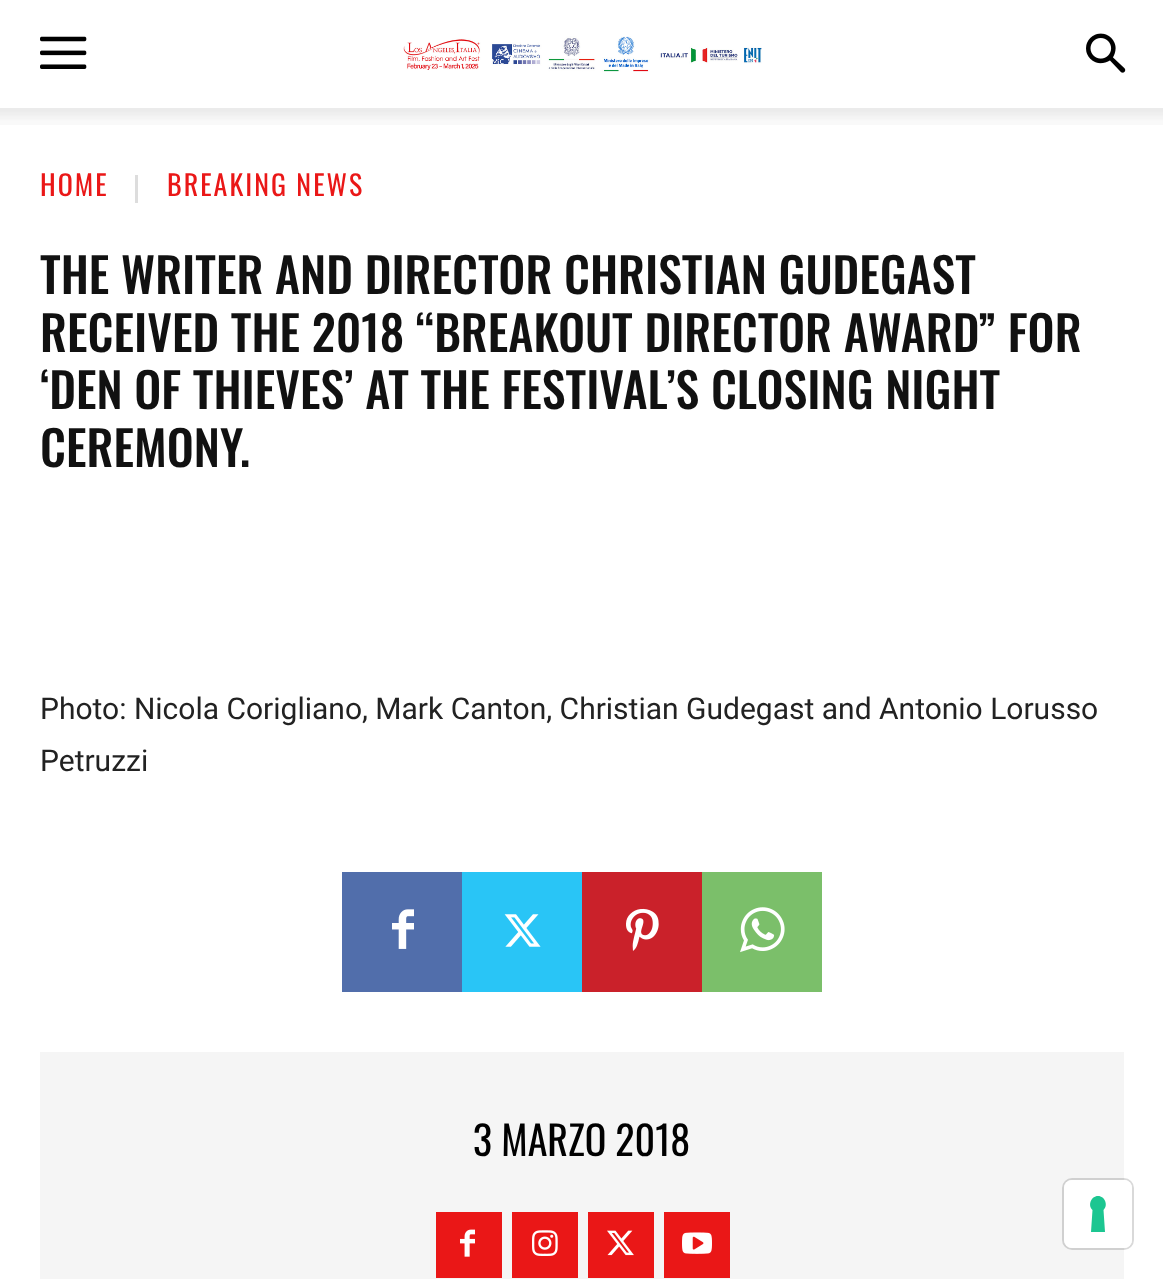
async function draw(canvas) {
	canvas.width = 1163;
	canvas.height = 1279;
	const c = canvas.getContext('2d');
	c.miterLimit = 4;
	c.fontKerning = 'normal';
	async function loadImage(src) {
		const img = new Image();
		img.src = src;
		await img.decode();
		return img;
	}

	c.fillStyle = '#fff';
	c.fillRect(0, 0, 1163, 1279);
	c.drawImage(await loadImage('img1.png'), 40, 36, 47, 33);
	c.drawImage(await loadImage('img2.png'), 403, 36, 359, 36);
	c.drawImage(await loadImage('img3.png'), 1086, 33, 40, 40);
	c.drawImage(await loadImage('img4.png'), 0, 108, 1163, 17);
	c.letterSpacing = '2px';
	c.font = '28px Oswald';
	c.fillStyle = '#ea1717';
	c.fillText('HOME', 40, 196);
	c.fillStyle = '#ddd';
	c.fillRect(135, 175, 3, 28);
	c.fillStyle = '#ea1717';
	c.fillText('BREAKING NEWS', 167, 196);
	c.letterSpacing = '0px';
	c.font = '500 48px Oswald';
	c.fillStyle = '#111';
	for (const [text, x, y] of [
		['THE WRITER AND DIRECTOR CHRISTIAN GUDEGAST', 40, 294],
		['RECEIVED THE 2018 “BREAKOUT DIRECTOR AWARD” FOR', 40, 352],
		['‘DEN OF THIEVES’ AT THE FESTIVAL’S CLOSING NIGHT', 40, 409],
		['CEREMONY.', 40, 467],
	]) {
		c.fillText(text, x, y);
	}
	c.font = '30px Roboto';
	c.fillStyle = '#222';
	c.fillText('Photo: Nicola Corigliano, Mark Canton, Christian Gudegast and Antonio Lorusso', 40, 719);
	c.fillText('Petruzzi', 40, 771);
	c.fillStyle = '#516eab';
	c.fillRect(342, 872, 120, 120);
	c.drawImage(await loadImage('img5.png'), 392, 909, 22, 40);
	c.fillStyle = '#29c5f6';
	c.fillRect(462, 872, 120, 120);
	c.drawImage(await loadImage('img6.png'), 504, 914, 37, 33);
	c.fillStyle = '#ca212a';
	c.fillRect(582, 872, 120, 120);
	c.drawImage(await loadImage('img7.png'), 626, 908, 33, 43);
	c.fillStyle = '#7bbf6a';
	c.fillRect(702, 872, 120, 120);
	c.drawImage(await loadImage('img8.png'), 740, 907, 45, 46);
	c.fillStyle = '#f5f5f5';
	c.fillRect(40, 1052, 1084, 227);
	c.font = '40px Oswald';
	c.fillStyle = '#000';
	c.fillText('3 MARZO 2018', 473, 1156);
	c.fillStyle = '#ea1717';
	c.fillRect(436, 1212, 66, 66);
	c.drawImage(await loadImage('img9.png'), 460, 1229, 15, 28);
	c.fillRect(512, 1212, 66, 66);
	c.drawImage(await loadImage('img10.png'), 532, 1230, 26, 26);
	c.fillRect(588, 1212, 66, 66);
	c.drawImage(await loadImage('img11.png'), 607, 1230, 27, 26);
	c.fillRect(664, 1212, 66, 66);
	c.drawImage(await loadImage('img12.png'), 682, 1232, 30, 22);
	c.beginPath();
	c.roundRect(1063, 1179, 70, 70, 9);
	c.strokeStyle = '#00000026';
	c.lineWidth = 2;
	c.stroke();
	c.fillStyle = '#fff';
	c.beginPath();
	c.roundRect(1064, 1180, 68, 68, 8);
	c.fill();
	c.fillStyle = '#1cc691';
	c.beginPath();
	c.moveTo(1098, 1196);
	c.bezierCurveTo(1105, 1196, 1108.5, 1205.5, 1103.5, 1210);
	c.lineTo(1105, 1232);
	c.lineTo(1091, 1232);
	c.lineTo(1092.5, 1210);
	c.bezierCurveTo(1087.5, 1205.5, 1091, 1196, 1098, 1196);
	c.closePath();
	c.fill('evenodd');
}

draw(document.querySelector('canvas'));
